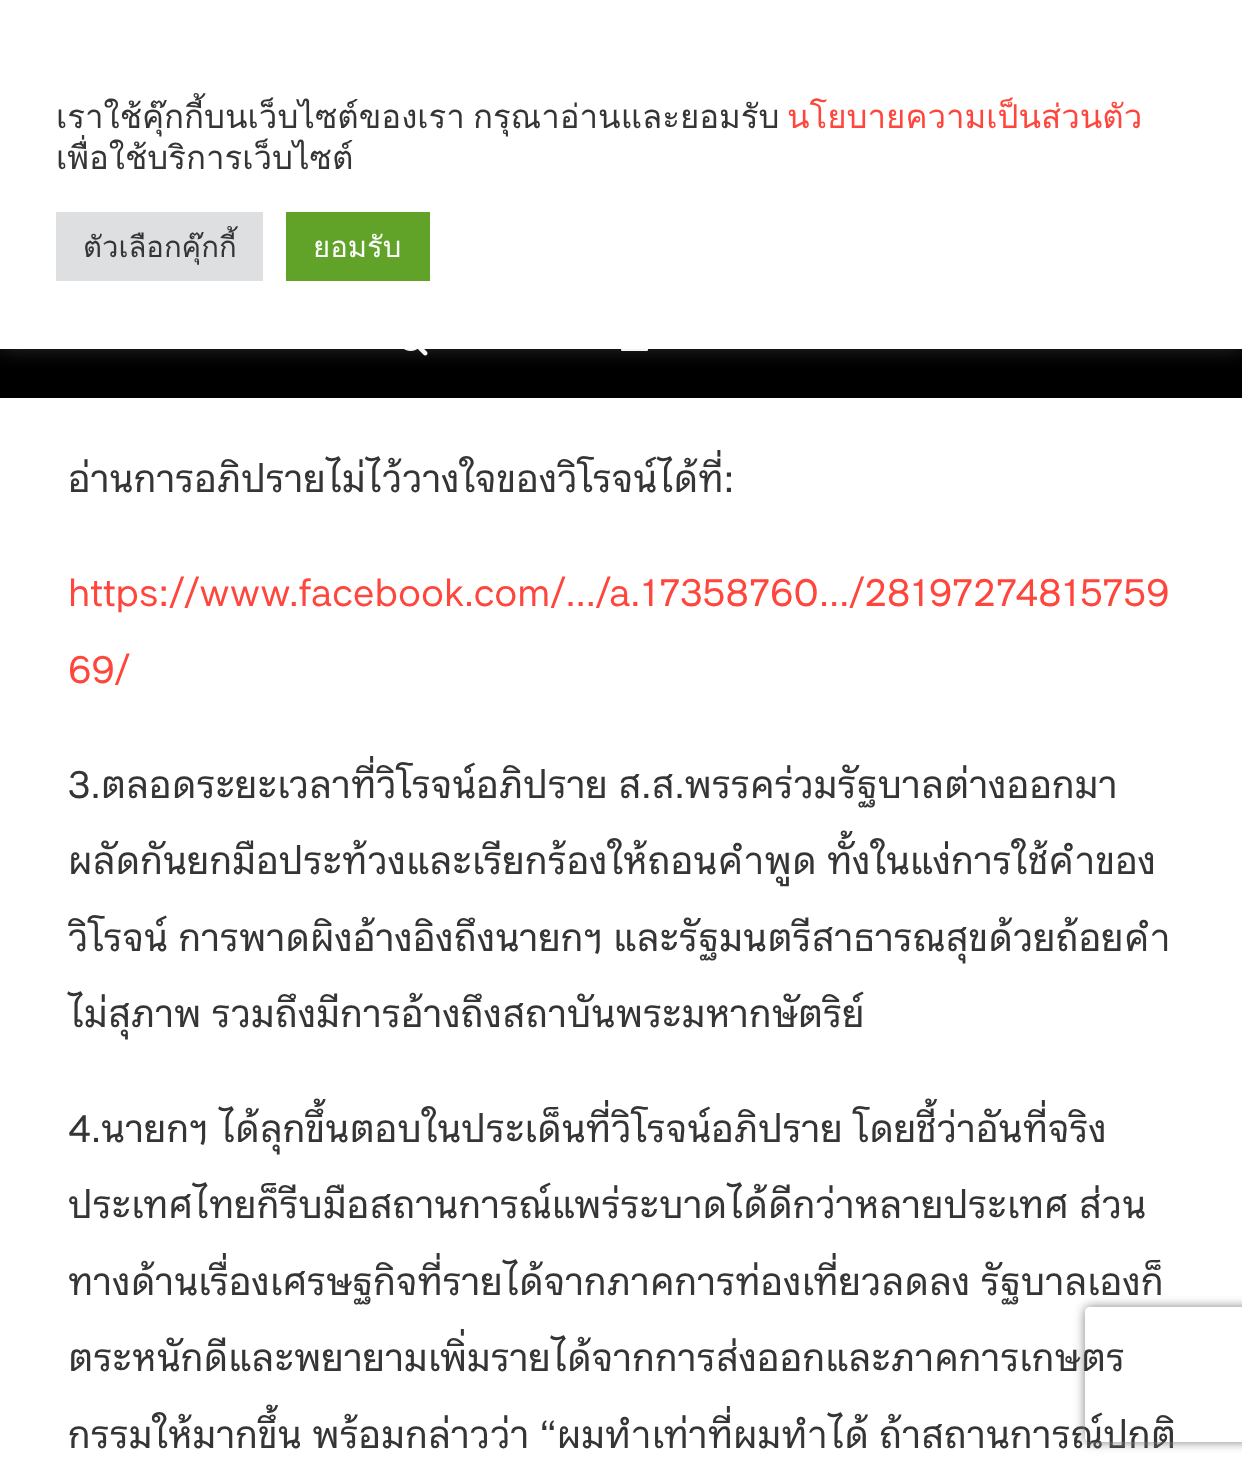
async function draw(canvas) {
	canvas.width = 1242;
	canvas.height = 1472;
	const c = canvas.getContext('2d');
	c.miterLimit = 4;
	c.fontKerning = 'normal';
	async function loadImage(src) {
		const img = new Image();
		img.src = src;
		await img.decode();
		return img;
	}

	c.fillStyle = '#fff';
	c.fillRect(0, 0, 1242, 1472);
	c.fillStyle = '#000';
	c.fillRect(0, 349, 1242, 49);
	c.drawImage(await loadImage('img1.png'), 404, 349, 24, 7);
	c.drawImage(await loadImage('img2.png'), 621, 349, 27, 2);
	c.fillStyle = '#acabab4d';
	c.filter = 'blur(11px)';
	c.beginPath();
	c.rect(0, -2, 1242, 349);
	c.fill();
	c.filter = 'none';
	c.fillStyle = '#fff';
	c.fillRect(0, 0, 1242, 349);
	c.wordSpacing = '-3px';
	c.font = '33px Loma';
	c.fillStyle = '#353535';
	c.fillText('เราใช้คุ๊กกี้บนเว็บไซต์ของเรา กรุณาอ่านและยอมรับ', 56, 128);
	c.wordSpacing = '0px';
	c.fillStyle = '#ff463d';
	c.fillText('นโยบายความเป็นส่วนตัว', 787, 128);
	c.fillStyle = '#353535';
	c.fillText('เพื่อใช้บริการเว็บไซต์', 56, 169);
	c.fillStyle = '#dedfe0';
	c.fillRect(56, 212, 207, 69);
	c.font = '29.25px Loma';
	c.fillStyle = '#353535';
	c.fillText('ตัวเลือกคุ๊กกี้', 83, 257);
	c.fillStyle = '#61a229';
	c.fillRect(286, 212, 144, 69);
	c.fillStyle = '#fff';
	c.fillText('ยอมรับ', 313, 257);
	c.font = '38.25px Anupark';
	c.fillStyle = '#353535';
	c.fillText('อ่านการอภิปรายไม่ไว้วางใจของวิโรจน์ได้ที่:', 68, 492);
	c.fillStyle = '#ff463d';
	c.fillText('https://www.facebook.com/…/a.17358760…/28197274815759', 68, 606);
	c.fillText('69/', 68, 683);
	c.fillStyle = '#353535';
	for (const [text, x, y] of [
		['3.ตลอดระยะเวลาที่วิโรจน์อภิปราย ส.ส.พรรคร่วมรัฐบาลต่างออกมา', 68, 798],
		['ผลัดกันยกมือประท้วงและเรียกร้องให้ถอนคำพูด ทั้งในแง่การใช้คำของ', 68, 874],
		['วิโรจน์ การพาดผิงอ้างอิงถึงนายกฯ และรัฐมนตรีสาธารณสุขด้วยถ้อยคำ', 68, 951],
		['ไม่สุภาพ รวมถึงมีการอ้างถึงสถาบันพระมหากษัตริย์', 68, 1027],
		['4.นายกฯ ได้ลุกขึ้นตอบในประเด็นที่วิโรจน์อภิปราย โดยชี้ว่าอันที่จริง', 68, 1142],
		['ประเทศไทยก็รีบมือสถานการณ์แพร่ระบาดได้ดีกว่าหลายประเทศ ส่วน', 68, 1218],
		['ทางด้านเรื่องเศรษฐกิจที่รายได้จากภาคการท่องเที่ยวลดลง รัฐบาลเองก็', 68, 1295],
		['ตระหนักดีและพยายามเพิ่มรายได้จากการส่งออกและภาคการเกษตร', 68, 1371],
		['กรรมให้มากขึ้น พร้อมกล่าวว่า “ผมทำเท่าที่ผมทำได้ ถ้าสถานการณ์ปกติ', 68, 1448],
	]) {
		c.fillText(text, x, y);
	}
	c.save();
	c.beginPath();
	c.moveTo(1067, 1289);
	c.lineTo(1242, 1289);
	c.lineTo(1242, 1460);
	c.lineTo(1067, 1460);
	c.closePath();
	c.moveTo(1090, 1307);
	c.lineTo(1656, 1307);
	c.bezierCurveTo(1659, 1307, 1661, 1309, 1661, 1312);
	c.lineTo(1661, 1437);
	c.bezierCurveTo(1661, 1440, 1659, 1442, 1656, 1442);
	c.lineTo(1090, 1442);
	c.bezierCurveTo(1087, 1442, 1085, 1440, 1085, 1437);
	c.lineTo(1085, 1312);
	c.bezierCurveTo(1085, 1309, 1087, 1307, 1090, 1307);
	c.closePath();
	c.clip('evenodd');
	c.fillStyle = '#808080';
	c.filter = 'blur(5.5px)';
	c.beginPath();
	c.roundRect(1085, 1307, 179, 135, 5);
	c.fill();
	c.filter = 'none';
	c.restore();
}

draw(document.querySelector('canvas'));
